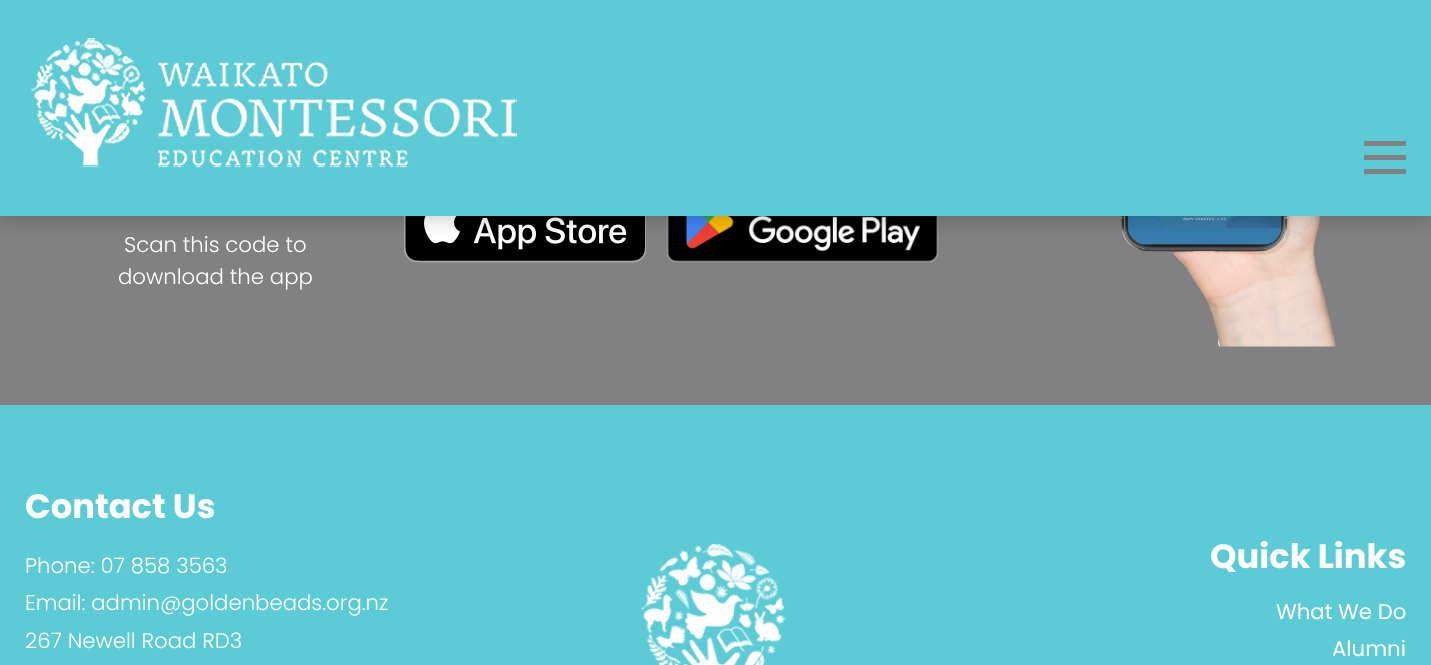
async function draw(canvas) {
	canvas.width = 1431;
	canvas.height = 665;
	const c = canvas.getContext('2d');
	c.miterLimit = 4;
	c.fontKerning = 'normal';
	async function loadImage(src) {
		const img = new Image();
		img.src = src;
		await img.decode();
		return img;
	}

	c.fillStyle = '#5dcbd6';
	c.fillRect(0, 0, 1431, 665);
	c.fillStyle = '#818181';
	c.fillRect(0, 216, 1431, 189);
	c.drawImage(await loadImage('img2.png'), 404, 216, 242, 47);
	c.drawImage(await loadImage('img3.png'), 665, 216, 275, 48);
	c.drawImage(await loadImage('img4.png'), 1121, 216, 215, 131);
	c.fillStyle = '#00000033';
	c.filter = 'blur(9.5px)';
	c.beginPath();
	c.rect(0, 3, 1431, 216);
	c.fill();
	c.filter = 'none';
	c.fillStyle = '#5dcbd6';
	c.fillRect(0, 0, 1431, 216);
	c.drawImage(await loadImage('img1.png'), 31, 38, 486, 130);
	for (const [x, y, w, h, color] of [
		[1364, 141, 42, 5, '#818181'],
		[1364, 155, 42, 5, '#818181'],
		[1364, 169, 42, 5, '#818181'],
	]) {
		c.fillStyle = color;
		c.fillRect(x, y, w, h);
	}
	c.font = '300 21.25px Poppins';
	c.fillStyle = '#fff';
	c.fillText('Scan this code to', 124, 252);
	c.fillText('download the app', 118, 284);
	c.font = 'bold 33.75px Poppins';
	c.fillText('Contact Us', 25, 518);
	c.font = '300 21.25px Poppins';
	for (const [text, x, y] of [
		['Phone: 07 858 3563', 25, 573],
		['Email: admin@goldenbeads.org.nz', 25, 610],
		['267 Newell Road RD3', 25, 648],
	]) {
		c.fillText(text, x, y);
	}
	c.drawImage(await loadImage('img5.png'), 641, 543, 145, 122);
	c.font = 'bold 33.75px Poppins';
	c.fillText('Quick Links', 1210, 568);
	c.font = '21.25px Poppins';
	c.fillText('What We Do', 1276, 619);
	c.fillText('Alumni', 1332, 656);
}

draw(document.querySelector('canvas'));
